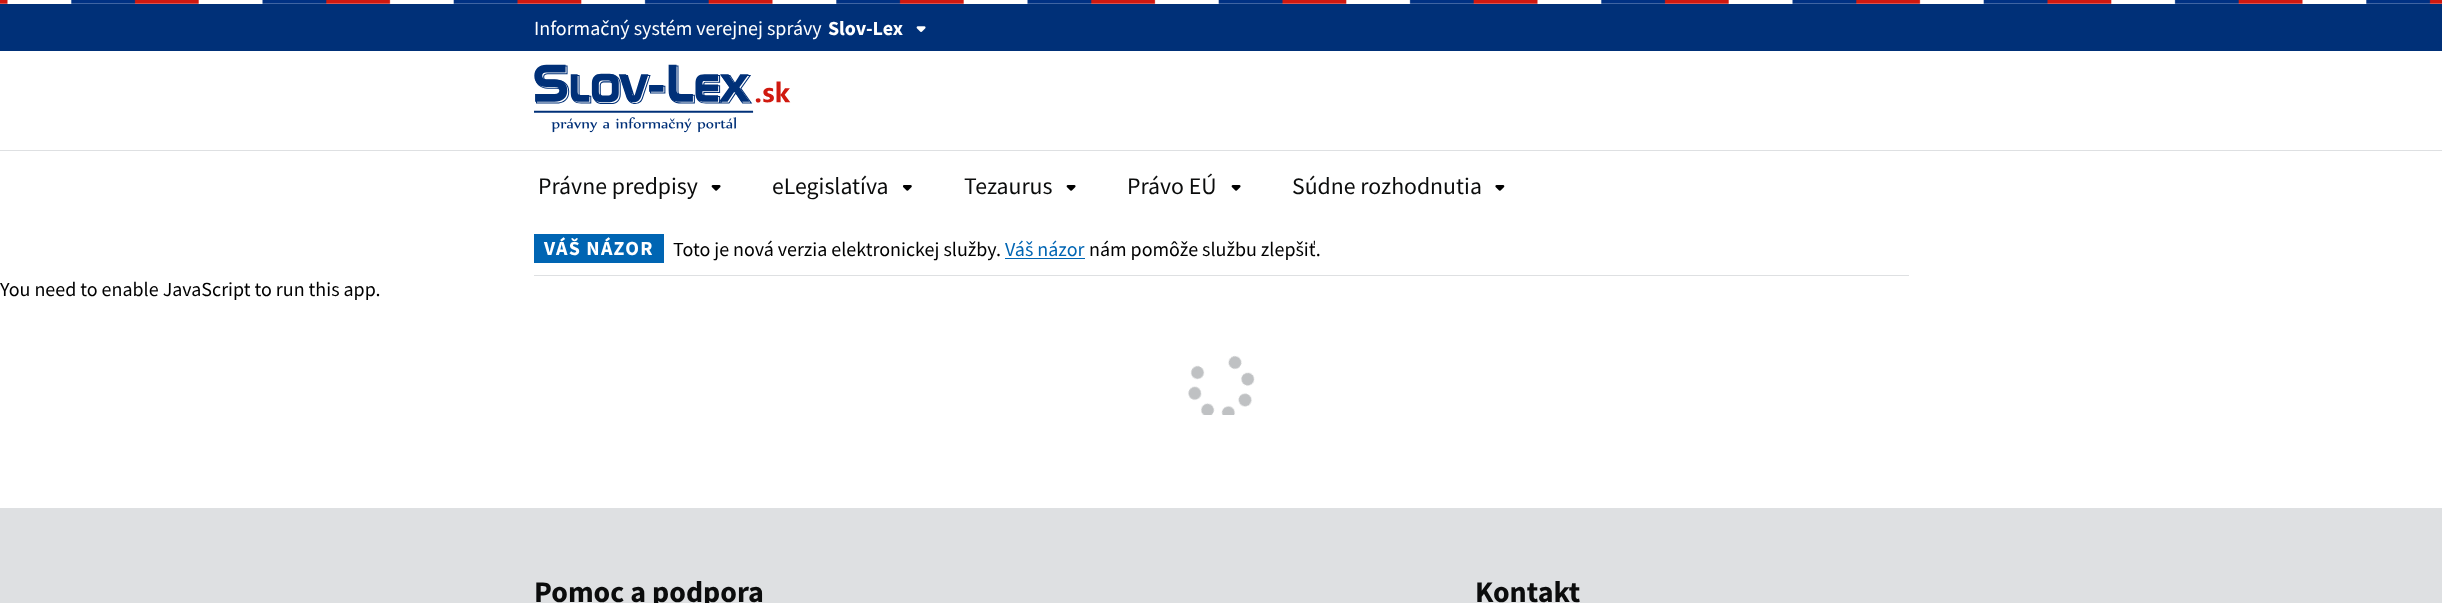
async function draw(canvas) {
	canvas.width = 2442;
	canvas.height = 603;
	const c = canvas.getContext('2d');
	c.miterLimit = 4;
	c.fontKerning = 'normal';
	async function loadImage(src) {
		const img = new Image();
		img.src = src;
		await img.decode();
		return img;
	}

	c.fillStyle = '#fff';
	c.fillRect(0, 0, 2442, 603);
	c.drawImage(await loadImage('img1.png'), 0, 0, 2442, 4);
	c.fillStyle = '#003078';
	c.fillRect(0, 4, 2442, 47);
	c.font = '20px Source Sans Pro';
	c.fillStyle = '#fff';
	c.fillText('Informačný systém verejnej správy', 534, 35);
	c.font = 'bold 20px Source Sans Pro';
	c.fillText('Slov-Lex', 828, 35);
	c.drawImage(await loadImage('img2.png'), 916, 26, 10, 6);
	c.drawImage(await loadImage('img3.png'), 534, 64, 257, 69);
	c.fillStyle = '#dee0e2';
	c.fillRect(0, 150, 2442, 1);
	c.font = '23.75px Source Sans Pro';
	c.fillStyle = '#0b0c0c';
	c.fillText('Právne predpisy', 538, 194);
	c.drawImage(await loadImage('img4.png'), 711, 185, 10, 6);
	c.fillText('eLegislatíva', 772, 194);
	c.drawImage(await loadImage('img5.png'), 903, 185, 9, 6);
	c.fillText('Tezaurus', 964, 194);
	c.drawImage(await loadImage('img4.png'), 1066, 185, 10, 6);
	c.fillText('Právo EÚ', 1127, 194);
	c.drawImage(await loadImage('img4.png'), 1231, 185, 10, 6);
	c.fillText('Súdne rozhodnutia', 1292, 194);
	c.drawImage(await loadImage('img6.png'), 1495, 185, 10, 6);
	c.fillStyle = '#dee0e2';
	c.fillRect(534, 275, 1375, 1);
	c.fillStyle = '#0065b3';
	c.fillRect(534, 234, 130, 29);
	c.letterSpacing = '1.25px';
	c.font = 'bold 20px Source Sans Pro';
	c.fillStyle = '#fff';
	c.fillText('VÁŠ NÁZOR', 544, 255);
	c.letterSpacing = '0px';
	c.font = '20px Source Sans Pro';
	c.fillStyle = '#000';
	c.fillText('Toto je nová verzia elektronickej služby.', 673, 256);
	c.fillStyle = '#0065b3';
	c.fillText('Váš názor', 1005, 256);
	c.fillRect(1005, 258, 80, 1);
	c.fillStyle = '#000';
	c.fillText('nám pomôže službu zlepšiť.', 1089, 256);
	c.drawImage(await loadImage('img7.png'), 0, 281, 1255, 134);
	c.fillStyle = '#dee0e2';
	c.fillRect(0, 508, 2442, 95);
	c.font = 'bold 30px Source Sans Pro';
	c.fillStyle = '#0b0c0c';
	c.fillText('Pomoc a podpora', 534, 602);
	c.fillText('Kontakt', 1475, 602);
}

draw(document.querySelector('canvas'));
